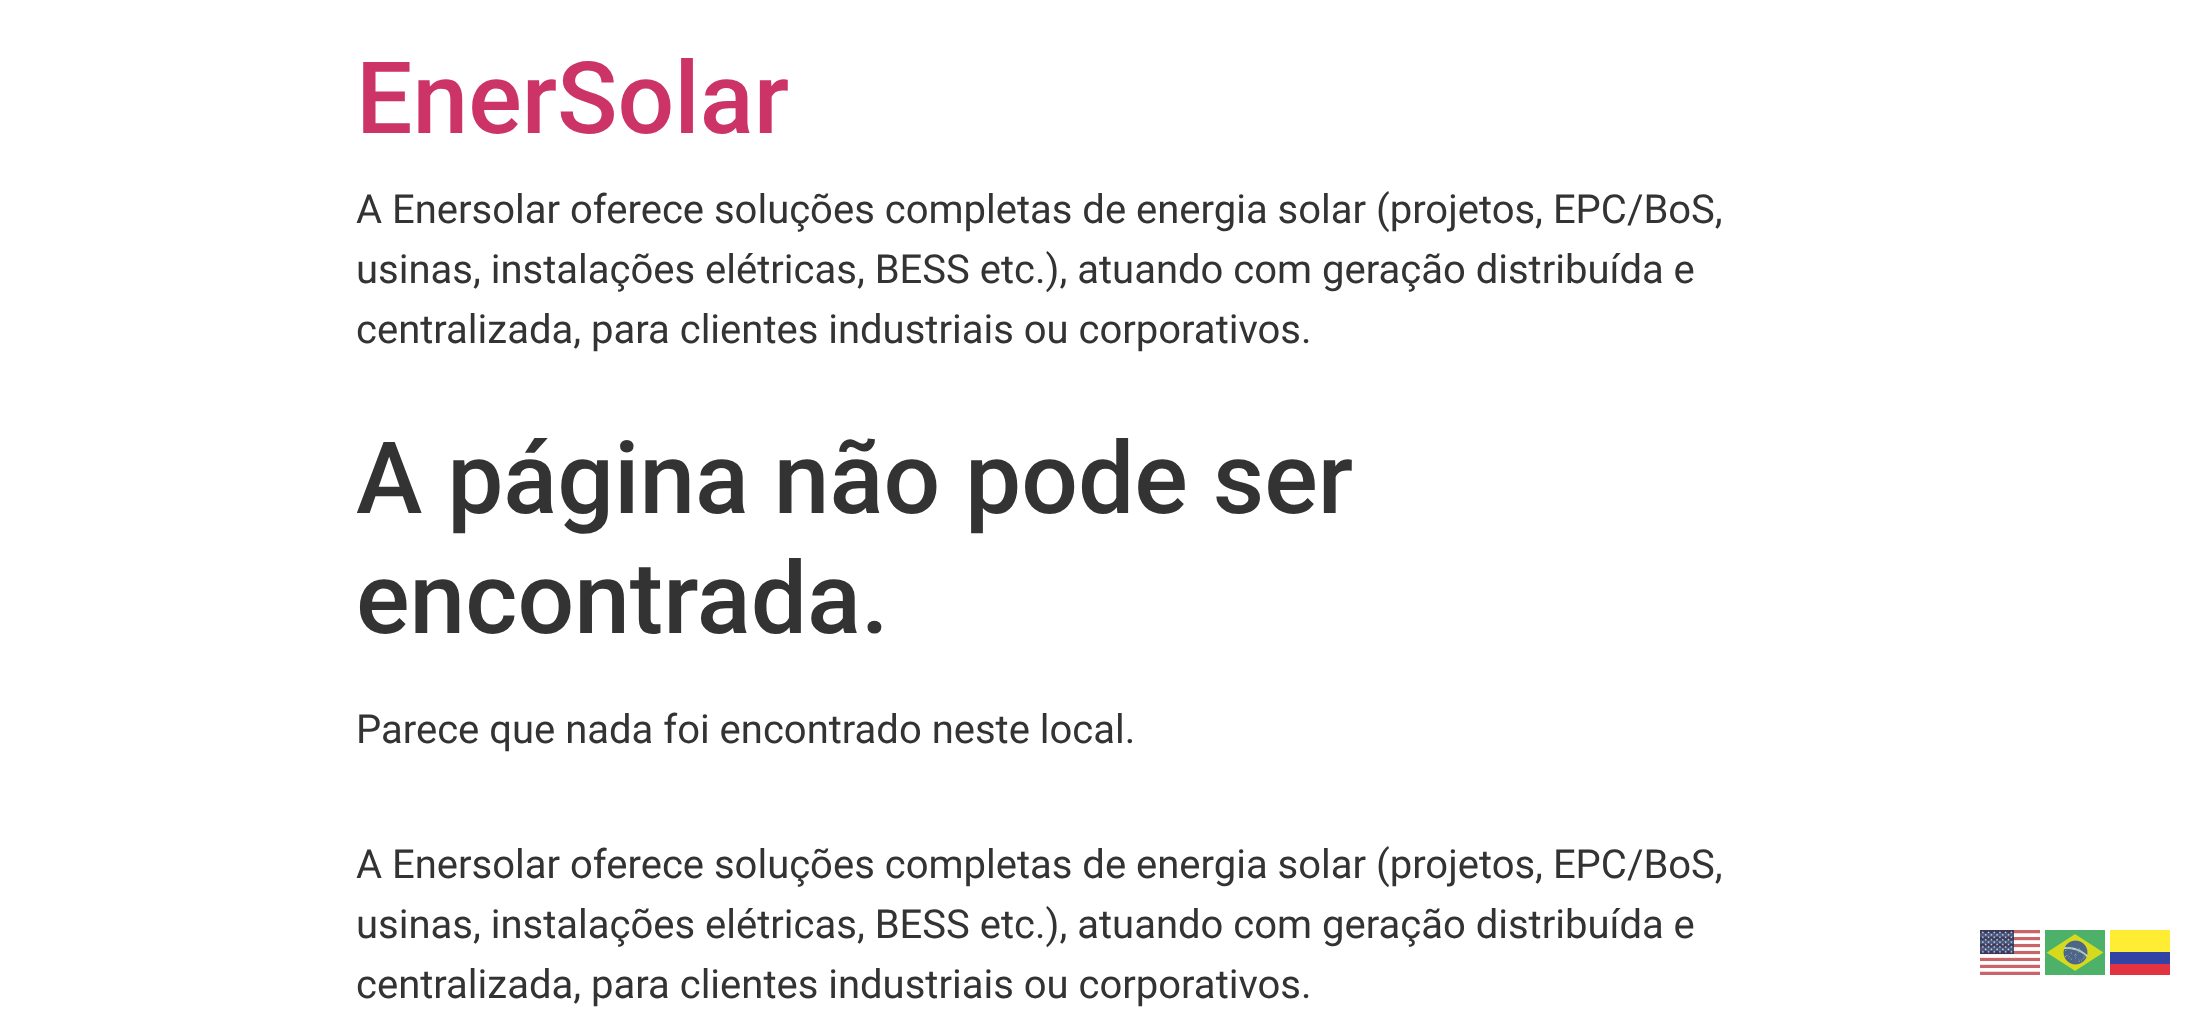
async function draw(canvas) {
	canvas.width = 2211;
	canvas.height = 1017;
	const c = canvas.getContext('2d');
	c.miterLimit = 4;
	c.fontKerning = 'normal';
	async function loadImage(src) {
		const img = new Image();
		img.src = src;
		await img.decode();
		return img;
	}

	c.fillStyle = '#fff';
	c.fillRect(0, 0, 2211, 1017);
	c.font = '500 100px Roboto';
	c.fillStyle = '#c36';
	c.fillText('EnerSolar', 356, 133);
	c.font = '40px Roboto';
	c.fillStyle = '#333';
	for (const [text, x, y] of [
		['A Enersolar oferece soluções completas de energia solar (projetos, EPC/BoS,', 356, 223],
		['usinas, instalações elétricas, BESS etc.), atuando com geração distribuída e', 356, 283],
		['centralizada, para clientes industriais ou corporativos.', 356, 343],
	]) {
		c.fillText(text, x, y);
	}
	c.font = '500 100px Roboto';
	c.fillText('A página não pode ser', 356, 513);
	c.fillText('encontrada.', 356, 633);
	c.font = '40px Roboto';
	for (const [text, x, y] of [
		['Parece que nada foi encontrado neste local.', 356, 743],
		['A Enersolar oferece soluções completas de energia solar (projetos, EPC/BoS,', 356, 878],
		['usinas, instalações elétricas, BESS etc.), atuando com geração distribuída e', 356, 938],
		['centralizada, para clientes industriais ou corporativos.', 356, 998],
	]) {
		c.fillText(text, x, y);
	}
	c.drawImage(await loadImage('img1.png'), 1980, 930, 60, 45);
	c.drawImage(await loadImage('img2.png'), 2045, 930, 60, 45);
	for (const [x, y, w, h, color] of [
		[2110, 930, 60, 22, '#ffed33'],
		[2110, 952, 60, 12, '#3343a5'],
		[2110, 964, 60, 11, '#e13340'],
	]) {
		c.fillStyle = color;
		c.fillRect(x, y, w, h);
	}
}

draw(document.querySelector('canvas'));
